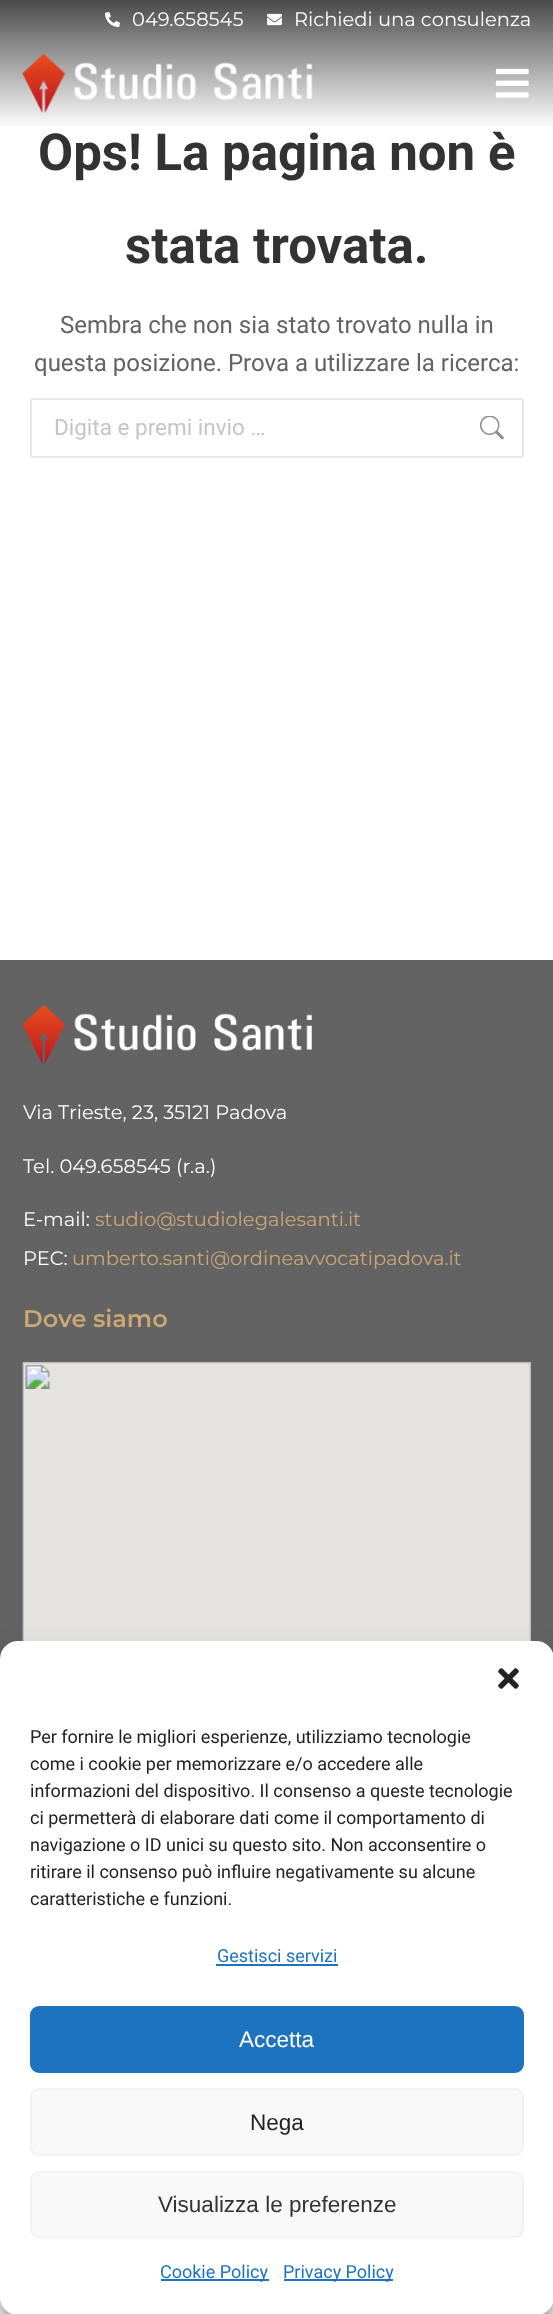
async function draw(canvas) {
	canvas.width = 553;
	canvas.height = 2314;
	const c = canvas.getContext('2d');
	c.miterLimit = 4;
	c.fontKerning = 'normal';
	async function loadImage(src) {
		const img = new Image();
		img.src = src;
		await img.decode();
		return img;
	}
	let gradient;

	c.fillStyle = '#fff';
	c.fillRect(0, 0, 553, 2314);
	gradient = c.createLinearGradient(277, 0, 277, 129);
	gradient.addColorStop(0, '#4a4a4a');
	gradient.addColorStop(1, '#fff');
	c.fillStyle = gradient;
	c.fillRect(0, 0, 553, 127);
	c.drawImage(await loadImage('img1.png'), 105, 12, 15, 15);
	c.font = '19.5px Montserrat';
	c.fillStyle = '#fff';
	c.fillText('049.658545', 132, 26);
	c.drawImage(await loadImage('img2.png'), 267, 13, 15, 13);
	c.fillText('Richiedi una consulenza', 294, 26);
	c.drawImage(await loadImage('img3.png'), 22, 53, 291, 60);
	c.drawImage(await loadImage('img4.png'), 495, 68, 34, 30);
	c.font = 'bold 51px Roboto';
	c.fillStyle = '#333';
	c.fillText('Ops! La pagina non è', 38, 170);
	c.fillText('stata trovata.', 125, 263);
	c.font = '24px Roboto';
	c.fillStyle = '#636363';
	c.fillText('Sembra che non sia stato trovato nulla in', 60, 333);
	c.fillText('questa posizione. Prova a utilizzare la ricerca:', 34, 371);
	c.beginPath();
	c.roundRect(31, 399, 492, 58, 2);
	c.strokeStyle = '#e7e7e7';
	c.lineWidth = 2;
	c.stroke();
	c.font = '22.5px Roboto';
	c.fillStyle = '#c4c5c9';
	c.fillText('Digita e premi invio …', 54, 435);
	c.drawImage(await loadImage('img5.png'), 480, 416, 24, 24);
	c.fillStyle = '#636363';
	c.fillRect(0, 960, 553, 699);
	c.drawImage(await loadImage('img6.png'), 22, 1005, 290, 59);
	c.font = '19.5px Montserrat';
	c.fillStyle = '#fff';
	for (const [text, x, y] of [
		['Via Trieste, 23, 35121 Padova', 23, 1119],
		['Tel. 049.658545 (r.a.)', 23, 1173],
		['E-mail:', 23, 1226],
	]) {
		c.fillText(text, x, y);
	}
	c.fillStyle = '#cca776';
	c.fillText('studio@studiolegalesanti.it', 95, 1226);
	c.fillStyle = '#fff';
	c.fillText('PEC:', 23, 1265);
	c.fillStyle = '#cca776';
	c.fillText('umberto.santi@ordineavvocatipadova.it', 72, 1265);
	c.font = '600 24px Montserrat';
	c.fillText('Dove siamo', 23, 1327);
	c.drawImage(await loadImage('img7.png'), 22, 1362, 509, 279);
	c.fillStyle = '#0000003b';
	c.filter = 'blur(4.5px)';
	c.beginPath();
	c.roundRect(0, 1650, 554, 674, 18);
	c.fill();
	c.filter = 'none';
	c.fillStyle = '#00000030';
	c.filter = 'blur(15px)';
	c.beginPath();
	c.roundRect(0, 1656, 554, 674, 18);
	c.fill();
	c.filter = 'none';
	c.fillStyle = '#fff';
	c.beginPath();
	c.roundRect(0, 1641, 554, 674, 18);
	c.fill();
	c.drawImage(await loadImage('img8.png'), 498, 1668, 21, 21);
	c.font = '18px Roboto';
	c.fillStyle = '#222';
	for (const [text, x, y] of [
		['Per fornire le migliori esperienze, utilizziamo tecnologie', 30, 1743],
		['come i cookie per memorizzare e/o accedere alle', 30, 1770],
		['informazioni del dispositivo. Il consenso a queste tecnologie', 30, 1797],
		['ci permetterà di elaborare dati come il comportamento di', 30, 1824],
		['navigazione o ID unici su questo sito. Non acconsentire o', 30, 1851],
		['ritirare il consenso può influire negativamente su alcune', 30, 1878],
		['caratteristiche e funzioni.', 30, 1905],
	]) {
		c.fillText(text, x, y);
	}
	c.fillStyle = '#1e73be';
	c.fillText('Gestisci servizi', 217, 1962);
	c.fillRect(216, 1964, 122, 2);
	c.beginPath();
	c.roundRect(31, 2007, 492, 65, 8);
	c.fill();
	c.strokeStyle = '#1e73be';
	c.stroke();
	c.font = '22.5px Liberation Sans';
	c.fillStyle = '#fff';
	c.fillText('Accetta', 239, 2047);
	c.fillStyle = '#f9f9f9';
	c.beginPath();
	c.roundRect(31, 2089, 492, 66, 8);
	c.fill();
	c.strokeStyle = '#f2f2f2';
	c.stroke();
	c.fillStyle = '#222';
	c.fillText('Nega', 250, 2130);
	c.fillStyle = '#f9f9f9';
	c.beginPath();
	c.roundRect(31, 2172, 492, 65, 8);
	c.fill();
	c.stroke();
	c.fillStyle = '#333';
	c.fillText('Visualizza le preferenze', 158, 2212);
	c.fillStyle = '#1e73be';
	c.fillRect(161, 2279, 108, 2);
	c.font = '18px Roboto';
	c.fillText('Cookie Policy', 160, 2278);
	c.fillRect(284, 2279, 109, 2);
	c.fillText('Privacy Policy', 283, 2278);
}

draw(document.querySelector('canvas'));
